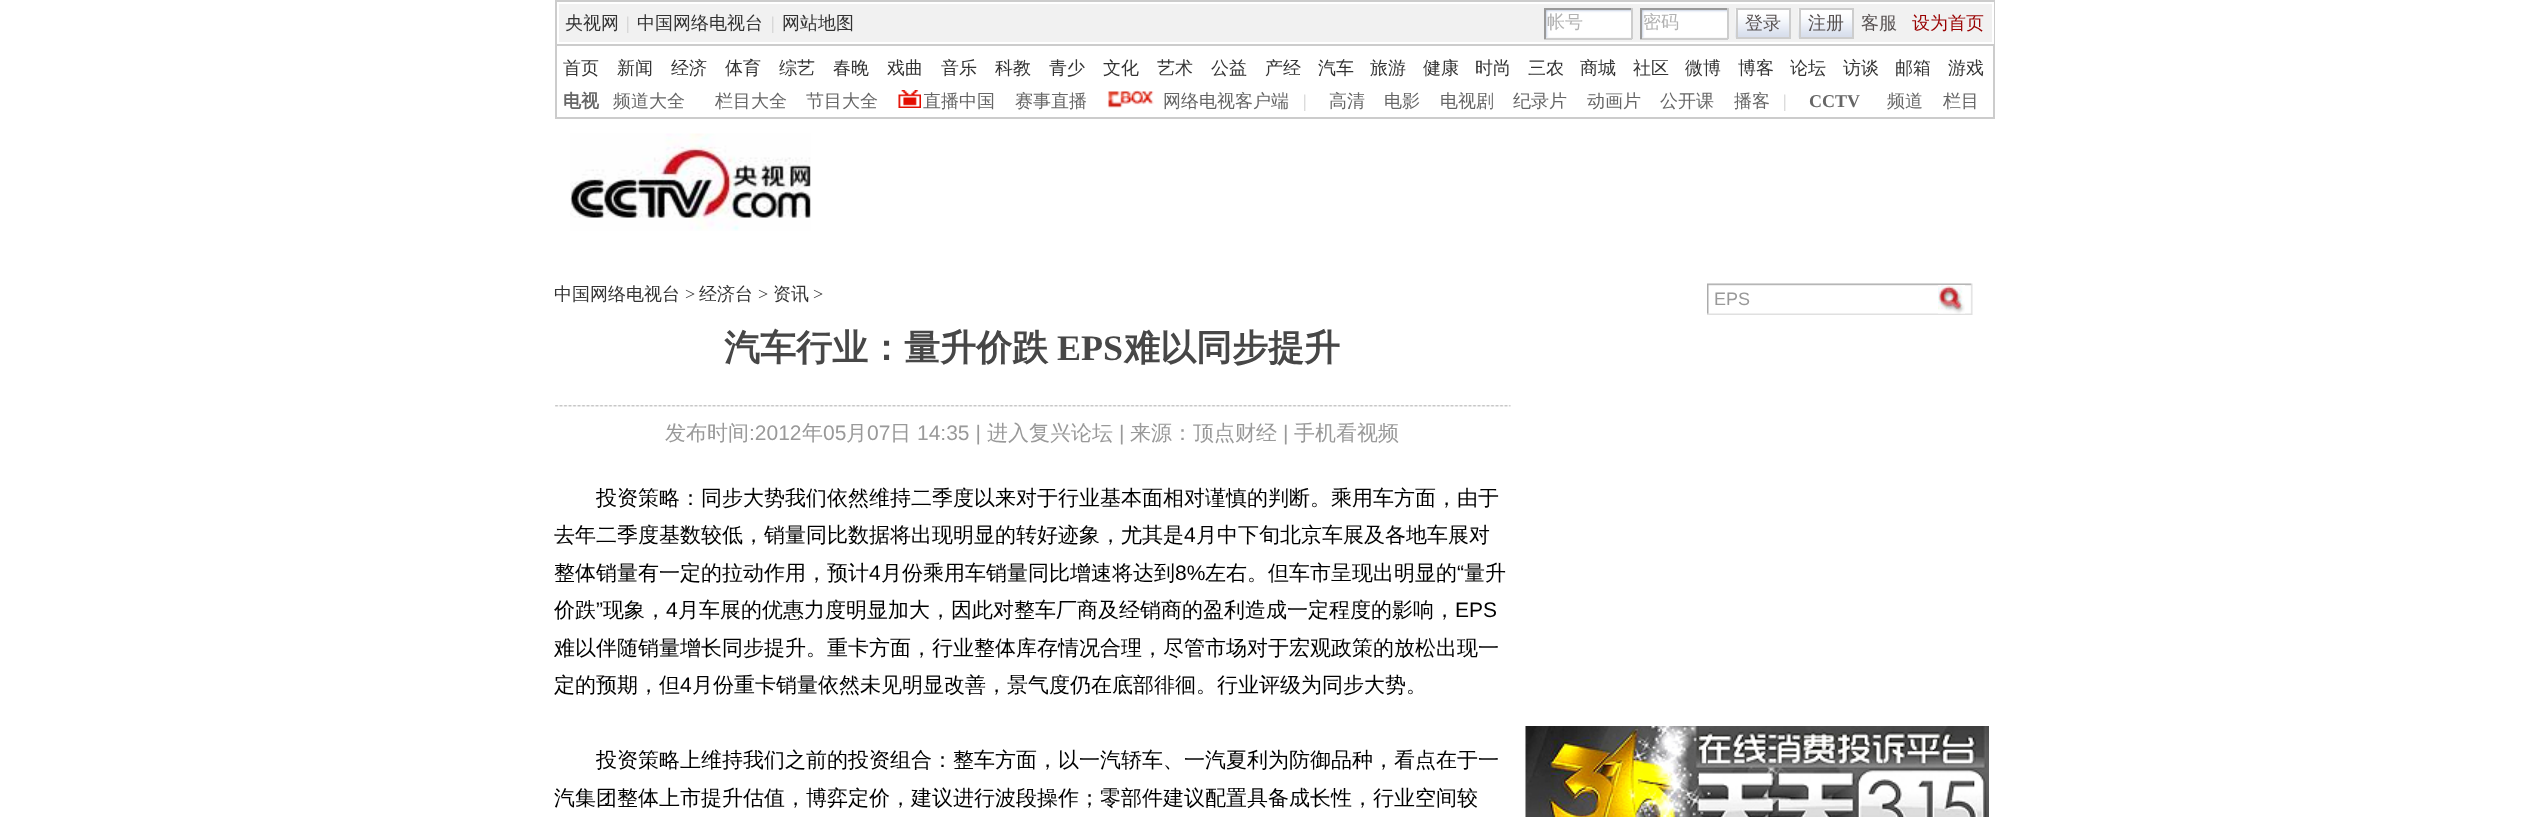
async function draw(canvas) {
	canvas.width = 2548;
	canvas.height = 817;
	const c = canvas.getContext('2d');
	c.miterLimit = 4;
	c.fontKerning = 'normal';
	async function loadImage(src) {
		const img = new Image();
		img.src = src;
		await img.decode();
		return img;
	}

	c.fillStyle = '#fff';
	c.fillRect(0, 0, 2548, 817);
	c.strokeStyle = '#ccc';
	c.lineWidth = 2;
	c.strokeRect(556, 1, 1438, 117);
	c.fillStyle = '#f1f1f1';
	c.beginPath();
	c.rect(558, 3, 1435, 40);
	c.fill();
	c.strokeStyle = '#fff';
	c.stroke();
	c.font = '500 18px WenQuanYi Zen Hei';
	c.fillStyle = '#333';
	c.fillText('央视网', 565, 29);
	c.font = '18px Liberation Serif';
	c.fillStyle = '#ccc';
	c.fillText('|', 626, 29);
	c.font = '500 18px WenQuanYi Zen Hei';
	c.fillStyle = '#333';
	c.fillText('中国网络电视台', 637, 29);
	c.font = '18px Liberation Serif';
	c.fillStyle = '#ccc';
	c.fillText('|', 771, 29);
	c.font = '500 18px WenQuanYi Zen Hei';
	c.fillStyle = '#333';
	c.fillText('网站地图', 782, 29);
	c.drawImage(await loadImage('img1.png'), 1546, 10, 85, 28);
	for (const [x, y, w, h, color] of [
		[1544, 8, 88, 2, '#9a9a9a'],
		[1631, 8, 2, 31, '#cdcdcd'],
		[1544, 38, 88, 2, '#cdcdcd'],
		[1544, 8, 2, 31, '#9a9a9a'],
	]) {
		c.fillStyle = color;
		c.fillRect(x, y, w, h);
	}
	c.fillStyle = '#b2b2b2';
	c.fillText('帐号', 1547, 28);
	c.drawImage(await loadImage('img1.png'), 1642, 10, 85, 28);
	for (const [x, y, w, h, color] of [
		[1640, 8, 88, 2, '#9a9a9a'],
		[1727, 8, 2, 31, '#cdcdcd'],
		[1640, 38, 88, 2, '#cdcdcd'],
		[1640, 8, 2, 31, '#9a9a9a'],
	]) {
		c.fillStyle = color;
		c.fillRect(x, y, w, h);
	}
	c.fillStyle = '#b2b2b2';
	c.fillText('密码', 1643, 28);
	c.drawImage(await loadImage('img2.png'), 1735, 9, 54, 29);
	c.strokeStyle = '#cdcdcd';
	c.strokeRect(1737, 9, 53, 29);
	c.fillStyle = '#585252';
	c.fillText('登录', 1745, 29);
	c.drawImage(await loadImage('img2.png'), 1798, 9, 54, 29);
	c.strokeRect(1800, 9, 53, 29);
	c.fillText('注册', 1808, 29);
	c.fillText('客服', 1861, 29);
	c.fillStyle = '#900';
	c.fillText('设为首页', 1912, 29);
	c.fillStyle = '#ccc';
	c.fillRect(557, 44, 1437, 2);
	c.fillStyle = '#333';
	for (const [text, x, y] of [
		['首页', 563, 74],
		['新闻', 617, 74],
		['经济', 671, 74],
		['体育', 725, 74],
		['综艺', 779, 74],
		['春晚', 833, 74],
		['戏曲', 887, 74],
		['音乐', 941, 74],
		['科教', 995, 74],
		['青少', 1049, 74],
		['文化', 1103, 74],
		['艺术', 1157, 74],
		['公益', 1211, 74],
		['产经', 1265, 74],
		['汽车', 1318, 74],
		['旅游', 1370, 74],
		['健康', 1423, 74],
		['时尚', 1475, 74],
		['三农', 1528, 74],
		['商城', 1580, 74],
		['社区', 1633, 74],
		['微博', 1685, 74],
		['博客', 1738, 74],
		['论坛', 1790, 74],
		['访谈', 1843, 74],
		['邮箱', 1895, 74],
		['游戏', 1948, 74],
	]) {
		c.fillText(text, x, y);
	}
	c.font = 'bold 18px WenQuanYi Zen Hei';
	c.fillStyle = '#666';
	c.fillText('电视', 563, 107);
	c.font = '500 18px WenQuanYi Zen Hei';
	for (const [text, x, y] of [
		['频道大全', 613, 107],
		['栏目大全', 715, 107],
		['节目大全', 806, 107],
	]) {
		c.fillText(text, x, y);
	}
	c.drawImage(await loadImage('img3.png'), 898, 90, 23, 18);
	c.fillText('直播中国', 923, 107);
	c.fillText('赛事直播', 1015, 107);
	c.drawImage(await loadImage('img4.png'), 1107, 90, 47, 18);
	c.fillText('网络电视客户端', 1163, 107);
	c.font = '18px Liberation Serif';
	c.fillStyle = '#ccc';
	c.fillText('|', 1303, 107);
	c.font = '500 18px WenQuanYi Zen Hei';
	c.fillStyle = '#666';
	for (const [text, x, y] of [
		['高清', 1329, 107],
		['电影', 1384, 107],
		['电视剧', 1440, 107],
		['纪录片', 1513, 107],
		['动画片', 1587, 107],
		['公开课', 1660, 107],
		['播客', 1734, 107],
	]) {
		c.fillText(text, x, y);
	}
	c.font = '18px Liberation Serif';
	c.fillStyle = '#ccc';
	c.fillText('|', 1783, 107);
	c.font = 'bold 18px Liberation Serif';
	c.fillStyle = '#666';
	c.fillText('CCTV', 1809, 107);
	c.font = '500 18px WenQuanYi Zen Hei';
	c.fillText('频道', 1887, 107);
	c.fillText('栏目', 1943, 107);
	c.drawImage(await loadImage('img5.png'), 570, 133, 241, 98);
	c.fillStyle = '#333';
	c.fillText('中国网络电视台', 554, 300);
	c.font = '18px Liberation Serif';
	c.fillText('>', 685, 300);
	c.font = '500 18px WenQuanYi Zen Hei';
	c.fillText('经济台', 699, 300);
	c.font = '18px Liberation Serif';
	c.fillText('>', 758, 300);
	c.font = '500 18px WenQuanYi Zen Hei';
	c.fillText('资讯', 773, 300);
	c.font = '18px Liberation Serif';
	c.fillText('>', 813, 300);
	c.drawImage(await loadImage('img6.png'), 1707, 283, 266, 32);
	c.font = '18px Liberation Sans';
	c.fillStyle = '#999';
	c.fillText('EPS', 1714, 305);
	c.drawImage(await loadImage('img7.png'), 1938, 285, 27, 29);
	c.font = 'bold 36px WenQuanYi Zen Hei';
	c.fillStyle = '#474747';
	c.fillText('汽车行业：量升价跌', 724, 360);
	c.font = 'bold 36px Liberation Serif';
	c.fillText('EPS', 1057, 360);
	c.font = 'bold 36px WenQuanYi Zen Hei';
	c.fillText('难以同步提升', 1124, 360);
	c.drawImage(await loadImage('img8.png'), 555, 405, 956, 2);
	c.font = '500 21px WenQuanYi Zen Hei';
	c.fillStyle = '#999';
	c.fillText('发布时间', 665, 440);
	c.font = '21px Liberation Sans';
	c.fillText(':2012', 749, 440);
	c.font = '500 21px WenQuanYi Zen Hei';
	c.fillText('年', 802, 440);
	c.font = '21px Liberation Sans';
	c.fillText('05', 823, 440);
	c.font = '500 21px WenQuanYi Zen Hei';
	c.fillText('月', 846, 440);
	c.font = '21px Liberation Sans';
	c.fillText('07', 867, 440);
	c.font = '500 21px WenQuanYi Zen Hei';
	c.fillText('日', 890, 440);
	c.font = '21px Liberation Sans';
	c.fillText('14:35 |', 917, 440);
	c.font = '500 21px WenQuanYi Zen Hei';
	c.fillText('进入复兴论坛', 987, 440);
	c.font = '21px Liberation Sans';
	c.fillText('|', 1119, 440);
	c.font = '500 21px WenQuanYi Zen Hei';
	c.fillText('来源：顶点财经', 1130, 440);
	c.font = '21px Liberation Sans';
	c.fillText('|', 1283, 440);
	c.font = '500 21px WenQuanYi Zen Hei';
	c.fillText('手机看视频', 1294, 440);
	c.fillStyle = '#000';
	c.fillText('投资策略：同步大势我们依然维持二季度以来对于行业基本面相对谨慎的判断。乘用车方面，由于', 596, 505);
	c.fillText('去年二季度基数较低，销量同比数据将出现明显的转好迹象，尤其是', 554, 542);
	c.font = '21px Liberation Sans';
	c.fillText('4', 1184, 542);
	c.font = '500 21px WenQuanYi Zen Hei';
	c.fillText('月中下旬北京车展及各地车展对', 1196, 542);
	c.fillText('整体销量有一定的拉动作用，预计', 554, 580);
	c.font = '21px Liberation Sans';
	c.fillText('4', 869, 580);
	c.font = '500 21px WenQuanYi Zen Hei';
	c.fillText('月份乘用车销量同比增速将达到', 881, 580);
	c.font = '21px Liberation Sans';
	c.fillText('8%', 1175, 580);
	c.font = '500 21px WenQuanYi Zen Hei';
	c.fillText('左右。但车市呈现出明显的', 1205, 580);
	c.font = '21px Liberation Sans';
	c.fillText('“', 1457, 580);
	c.font = '500 21px WenQuanYi Zen Hei';
	c.fillText('量升', 1464, 580);
	c.fillText('价跌', 554, 617);
	c.font = '21px Liberation Sans';
	c.fillText('”', 596, 617);
	c.font = '500 21px WenQuanYi Zen Hei';
	c.fillText('现象，', 603, 617);
	c.font = '21px Liberation Sans';
	c.fillText('4', 666, 617);
	c.font = '500 21px WenQuanYi Zen Hei';
	c.fillText('月车展的优惠力度明显加大，因此对整车厂商及经销商的盈利造成一定程度的影响，', 678, 617);
	c.font = '21px Liberation Sans';
	c.fillText('EPS', 1455, 617);
	c.font = '500 21px WenQuanYi Zen Hei';
	c.fillText('难以伴随销量增长同步提升。重卡方面，行业整体库存情况合理，尽管市场对于宏观政策的放松出现一', 554, 655);
	c.fillText('定的预期，但', 554, 692);
	c.font = '21px Liberation Sans';
	c.fillText('4', 680, 692);
	c.font = '500 21px WenQuanYi Zen Hei';
	for (const [text, x, y] of [
		['月份重卡销量依然未见明显改善，景气度仍在底部徘徊。行业评级为同步大势。', 692, 692],
		['投资策略上维持我们之前的投资组合：整车方面，以一汽轿车、一汽夏利为防御品种，看点在于一', 596, 767],
		['汽集团整体上市提升估值，博弈定价，建议进行波段操作；零部件建议配置具备成长性，行业空间较', 554, 805],
	]) {
		c.fillText(text, x, y);
	}
	c.drawImage(await loadImage('img9.png'), 1525, 726, 464, 91);
}

draw(document.querySelector('canvas'));
